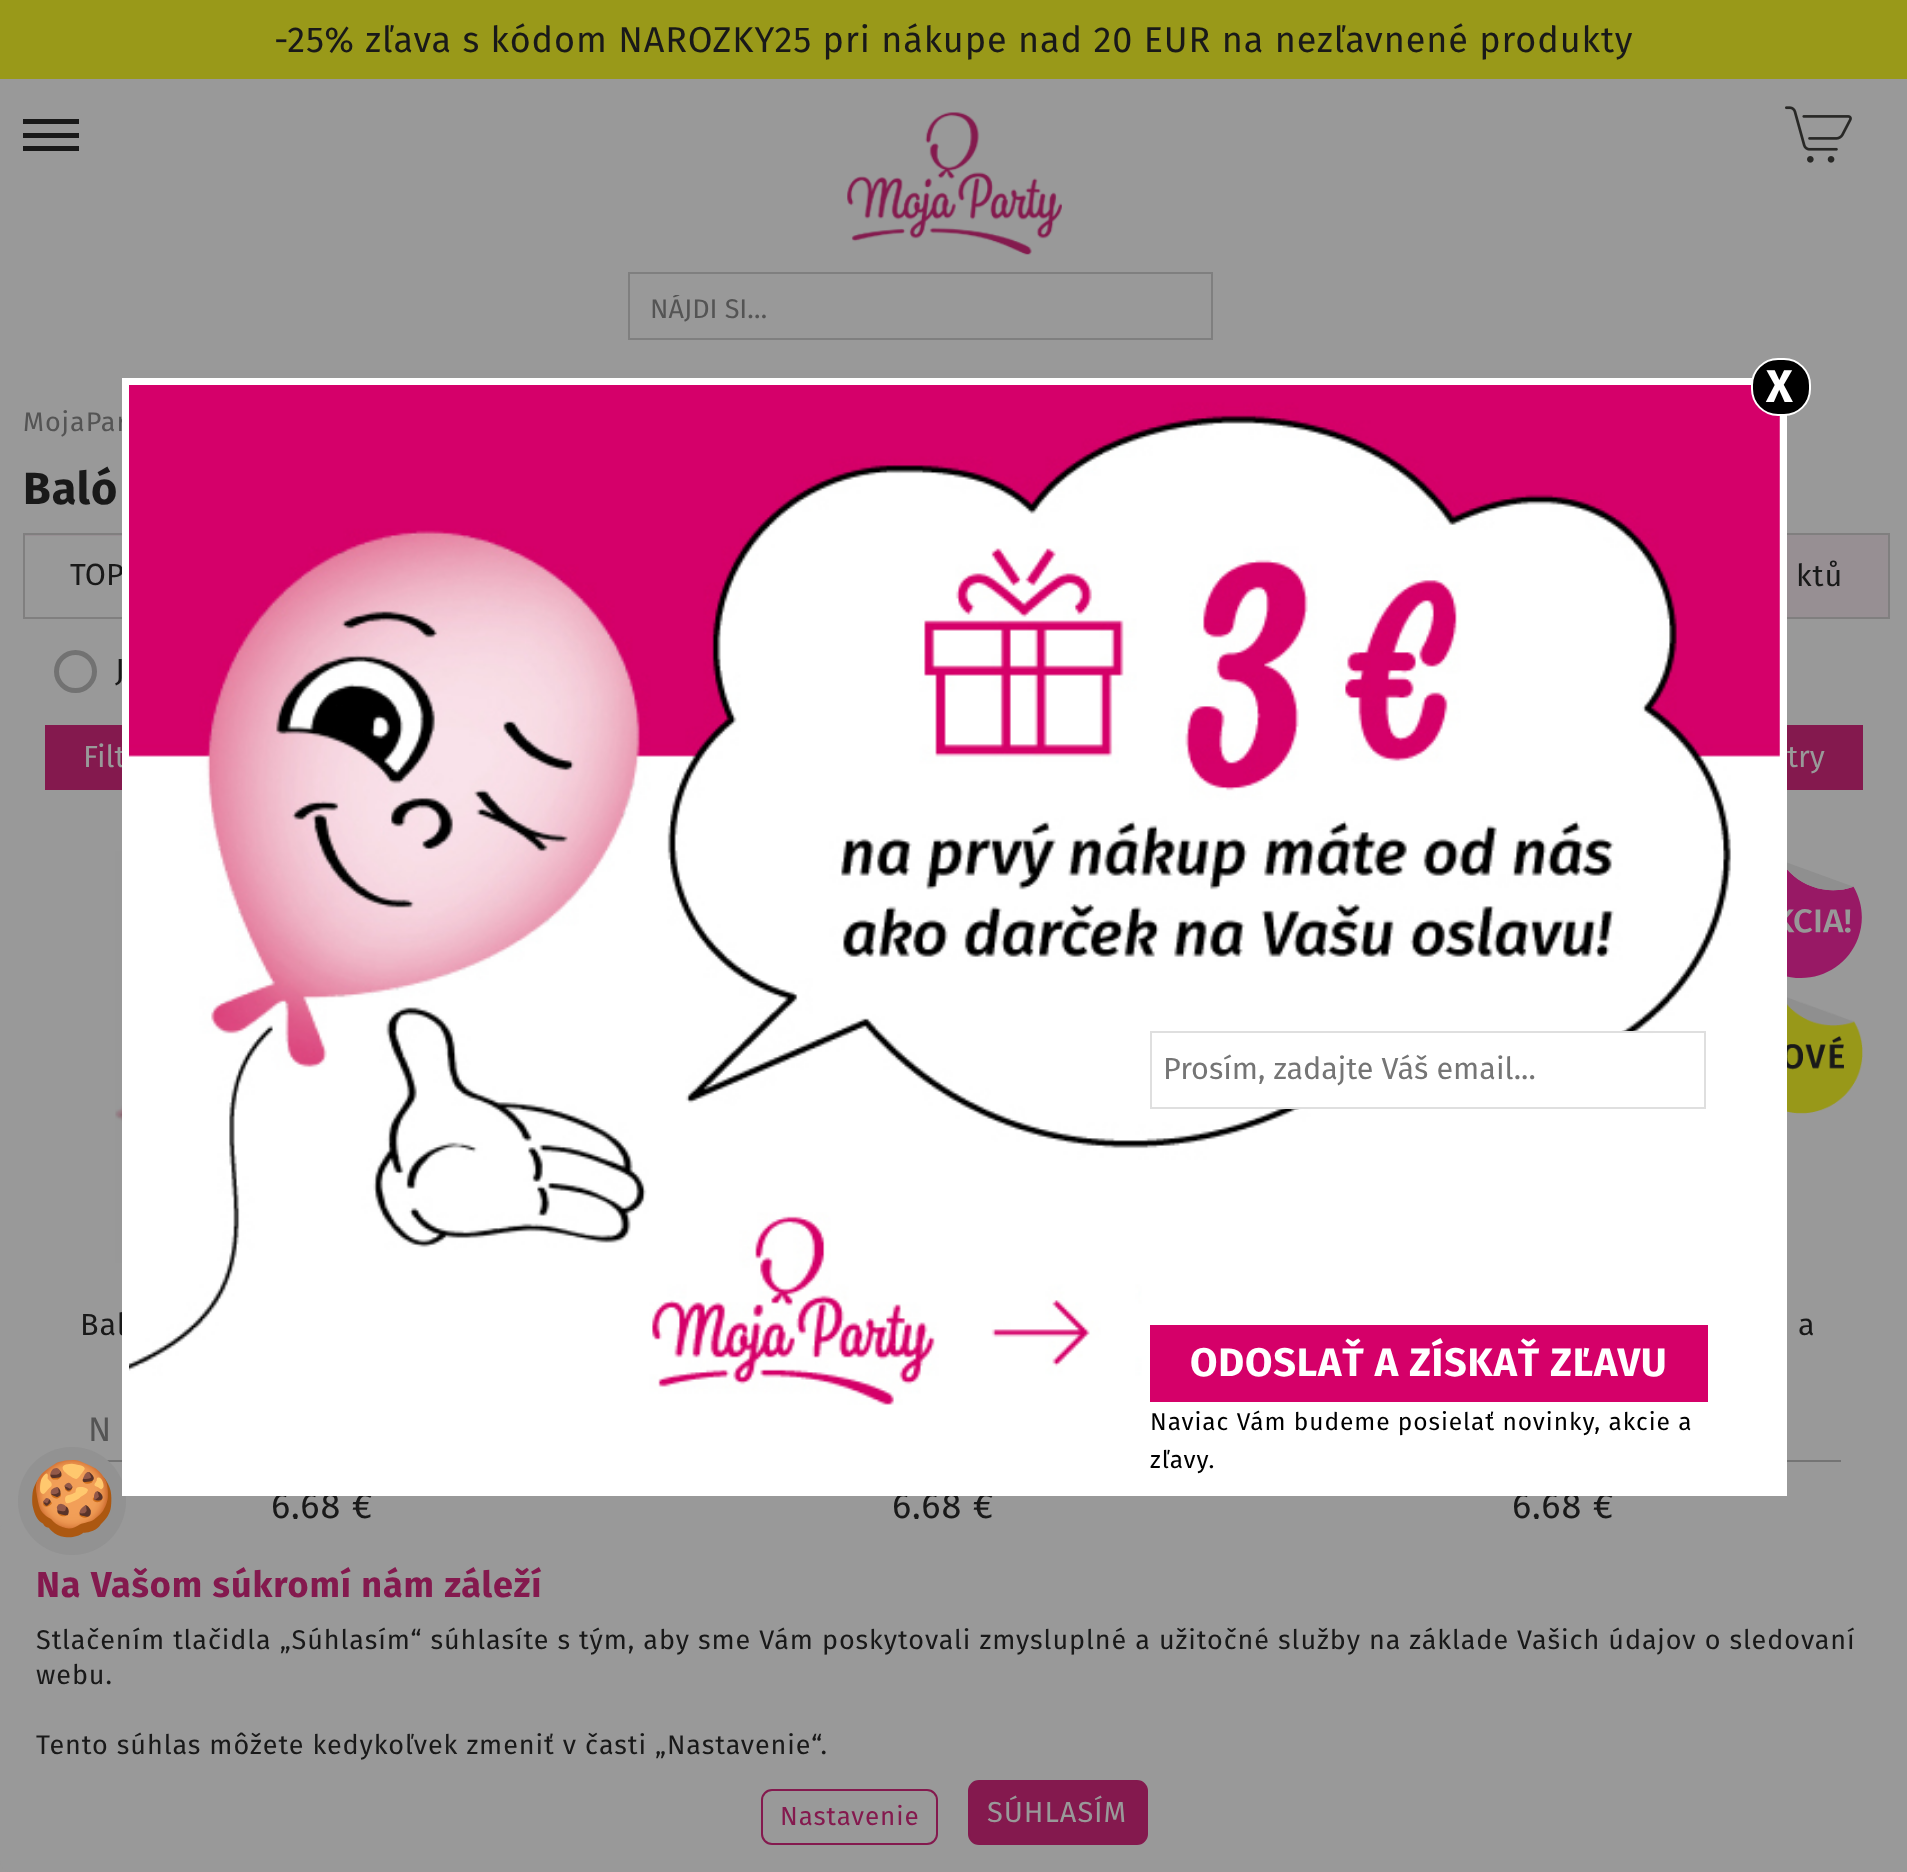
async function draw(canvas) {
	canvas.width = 1907;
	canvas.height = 1872;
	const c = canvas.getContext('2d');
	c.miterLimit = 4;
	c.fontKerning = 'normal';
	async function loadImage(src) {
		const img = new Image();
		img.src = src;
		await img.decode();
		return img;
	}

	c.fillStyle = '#999';
	c.fillRect(0, 0, 1907, 1872);
	c.fillStyle = '#999919';
	c.fillRect(0, 0, 1907, 79);
	c.letterSpacing = '0.92px';
	c.font = '36px Fira Sans';
	c.fillStyle = '#191919';
	c.fillText('-25% zľava s kódom NAROZKY25 pri nákupe nad 20 EUR na nezľavnené produkty', 274, 52);
	for (const [x, y, w, h, color] of [
		[23, 119, 56, 5, '#191919'],
		[23, 146, 56, 5, '#191919'],
		[23, 133, 56, 5, '#191919'],
	]) {
		c.fillStyle = color;
		c.fillRect(x, y, w, h);
	}
	c.drawImage(await loadImage('img1.png'), 847, 112, 215, 143);
	c.drawImage(await loadImage('img2.png'), 1785, 106, 67, 57);
	c.strokeStyle = '#7f7f7f';
	c.lineWidth = 2;
	c.strokeRect(629, 273, 583, 66);
	c.save();
	c.beginPath();
	c.rect(650, 295, 540, 31);
	c.clip();
	c.letterSpacing = '0px';
	c.font = '27px Fira Sans';
	c.fillStyle = '#545454';
	c.fillText('NÁJDI SI…', 650, 318);
	c.restore();
	c.fillStyle = '#978f93';
	c.beginPath();
	c.rect(24, 534, 1865, 84);
	c.fill();
	c.strokeStyle = '#807f7f';
	c.stroke();
	c.fillStyle = '#fff';
	c.fillRect(129, 416, 1651, 1073);
	c.drawImage(await loadImage('img3.png'), 129, 385, 1651, 1020);
	c.font = '27px Fira Sans';
	c.fillStyle = '#545454';
	c.fillText('MojaPar', 23, 431);
	c.fillStyle = '#999';
	c.fillRect(25, 536, 97, 81);
	c.letterSpacing = '0px';
	c.font = '30.6px Fira Sans';
	c.fillStyle = '#191919';
	c.fillText('TOP', 70, 585);
	c.fillStyle = '#84194e';
	c.fillRect(45, 725, 77, 65);
	c.fillStyle = '#999';
	c.fillText('Filt', 83, 767);
	c.letterSpacing = '0.92px';
	c.fillStyle = '#191919';
	c.fillText('Bal', 80, 1335);
	c.font = '36px Fira Sans';
	for (const [text, x, y] of [
		['6,68 €', 271, 1518],
		['6,68 €', 892, 1518],
		['6,68 €', 1512, 1518],
	]) {
		c.fillText(text, x, y);
	}
	c.fillStyle = '#747474';
	c.fillRect(107, 1460, 15, 2);
	c.fillStyle = '#999';
	c.beginPath();
	c.roundRect(0, 1519, 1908, 353, 11);
	c.fill();
	c.fillStyle = '#929292';
	c.beginPath();
	c.arc(72, 1501, 54, 0, 2 * Math.PI);
	c.fill();
	c.strokeStyle = '#fff';
	c.lineWidth = 7;
	c.strokeRect(125.5, 381.5, 1658, 1111);
	c.fillStyle = '#000';
	c.beginPath();
	c.roundRect(1752, 359, 58, 56, 26);
	c.fill();
	c.lineWidth = 2;
	c.stroke();
	c.font = 'bold 46px Fira Sans';
	c.fillStyle = '#fff';
	c.fillText('X', 1766, 402);
	c.fillRect(1280, 1033, 357, 74);
	c.strokeStyle = '#dfdfdf';
	c.strokeRect(1151, 1032, 554, 76);
	c.letterSpacing = '0px';
	c.font = '30.6px Fira Sans';
	c.fillStyle = '#757575';
	c.fillText('Prosím, zadajte Váš email...', 1163, 1079);
	c.fillStyle = '#d50069';
	c.fillRect(1150, 1325, 558, 77);
	c.letterSpacing = '0.8px';
	c.font = 'bold 39.75px Fira Sans';
	c.fillStyle = '#fff';
	c.fillText('ODOSLAŤ A ZÍSKAŤ ZĽAVU', 1190, 1376);
	c.letterSpacing = '0.92px';
	c.font = '24.5px Fira Sans';
	c.fillStyle = '#000';
	c.fillText('Naviac Vám budeme posielať novinky, akcie a', 1150, 1430);
	c.fillText('zľavy.', 1150, 1468);
	c.font = 'bold 45px Fira Sans';
	c.fillStyle = '#191919';
	c.fillText('Baló', 23, 504);
	c.font = '30.6px Fira Sans';
	c.fillText('ktů', 1796, 586);
	c.beginPath();
	c.arc(75.5, 671.5, 19, 0, 2 * Math.PI);
	c.strokeStyle = '#727272';
	c.lineWidth = 5;
	c.stroke();
	c.font = '32px Fira Sans';
	c.fillText('J', 115, 681);
	c.fillStyle = '#84194e';
	c.fillRect(1787, 725, 76, 65);
	c.letterSpacing = '0px';
	c.font = '30.6px Fira Sans';
	c.fillStyle = '#999';
	c.fillText('try', 1787, 767);
	c.drawImage(await loadImage('img4.png'), 115, 851, 7, 412);
	c.letterSpacing = '3px';
	c.font = '34px Fira Sans';
	c.fillStyle = '#545454';
	c.fillText('N', 88, 1441);
	c.letterSpacing = '0.92px';
	c.font = '30.6px Fira Sans';
	c.fillStyle = '#191919';
	c.fillText('a', 1798, 1335);
	c.drawImage(await loadImage('img5.png'), 1787, 862, 75, 116);
	c.drawImage(await loadImage('img6.png'), 1787, 997, 76, 117);
	c.fillStyle = '#747474';
	c.fillRect(1787, 1460, 54, 2);
	c.font = '72px Noto Color Emoji';
	c.fillStyle = '#191919';
	c.fillText('🍪', 27, 1523);
	c.font = 'bold 36px Fira Sans';
	c.fillStyle = '#84194e';
	c.fillText('Na Vašom súkromí nám záleží', 36, 1597);
	c.font = '27px Fira Sans';
	c.fillStyle = '#191919';
	for (const [text, x, y] of [
		['Stlačením tlačidla „Súhlasím“ súhlasíte s tým, aby sme Vám poskytovali zmysluplné a užitočné služby na základe Vašich údajov o sledovaní', 36, 1649],
		['webu.', 36, 1684],
		['Tento súhlas môžete kedykoľvek zmeniť v časti „Nastavenie“.', 36, 1754],
	]) {
		c.fillText(text, x, y);
	}
	c.beginPath();
	c.roundRect(762, 1790, 175, 54, 10);
	c.strokeStyle = '#84194e';
	c.lineWidth = 2;
	c.stroke();
	c.font = '26px Fira Sans';
	c.fillStyle = '#84194e';
	c.fillText('Nastavenie', 780, 1825);
	c.beginPath();
	c.roundRect(969, 1781, 178, 63, 10);
	c.fill();
	c.stroke();
	c.font = '29px Fira Sans';
	c.fillStyle = '#999';
	c.fillText('SÚHLASÍM', 987, 1822);
}

draw(document.querySelector('canvas'));
